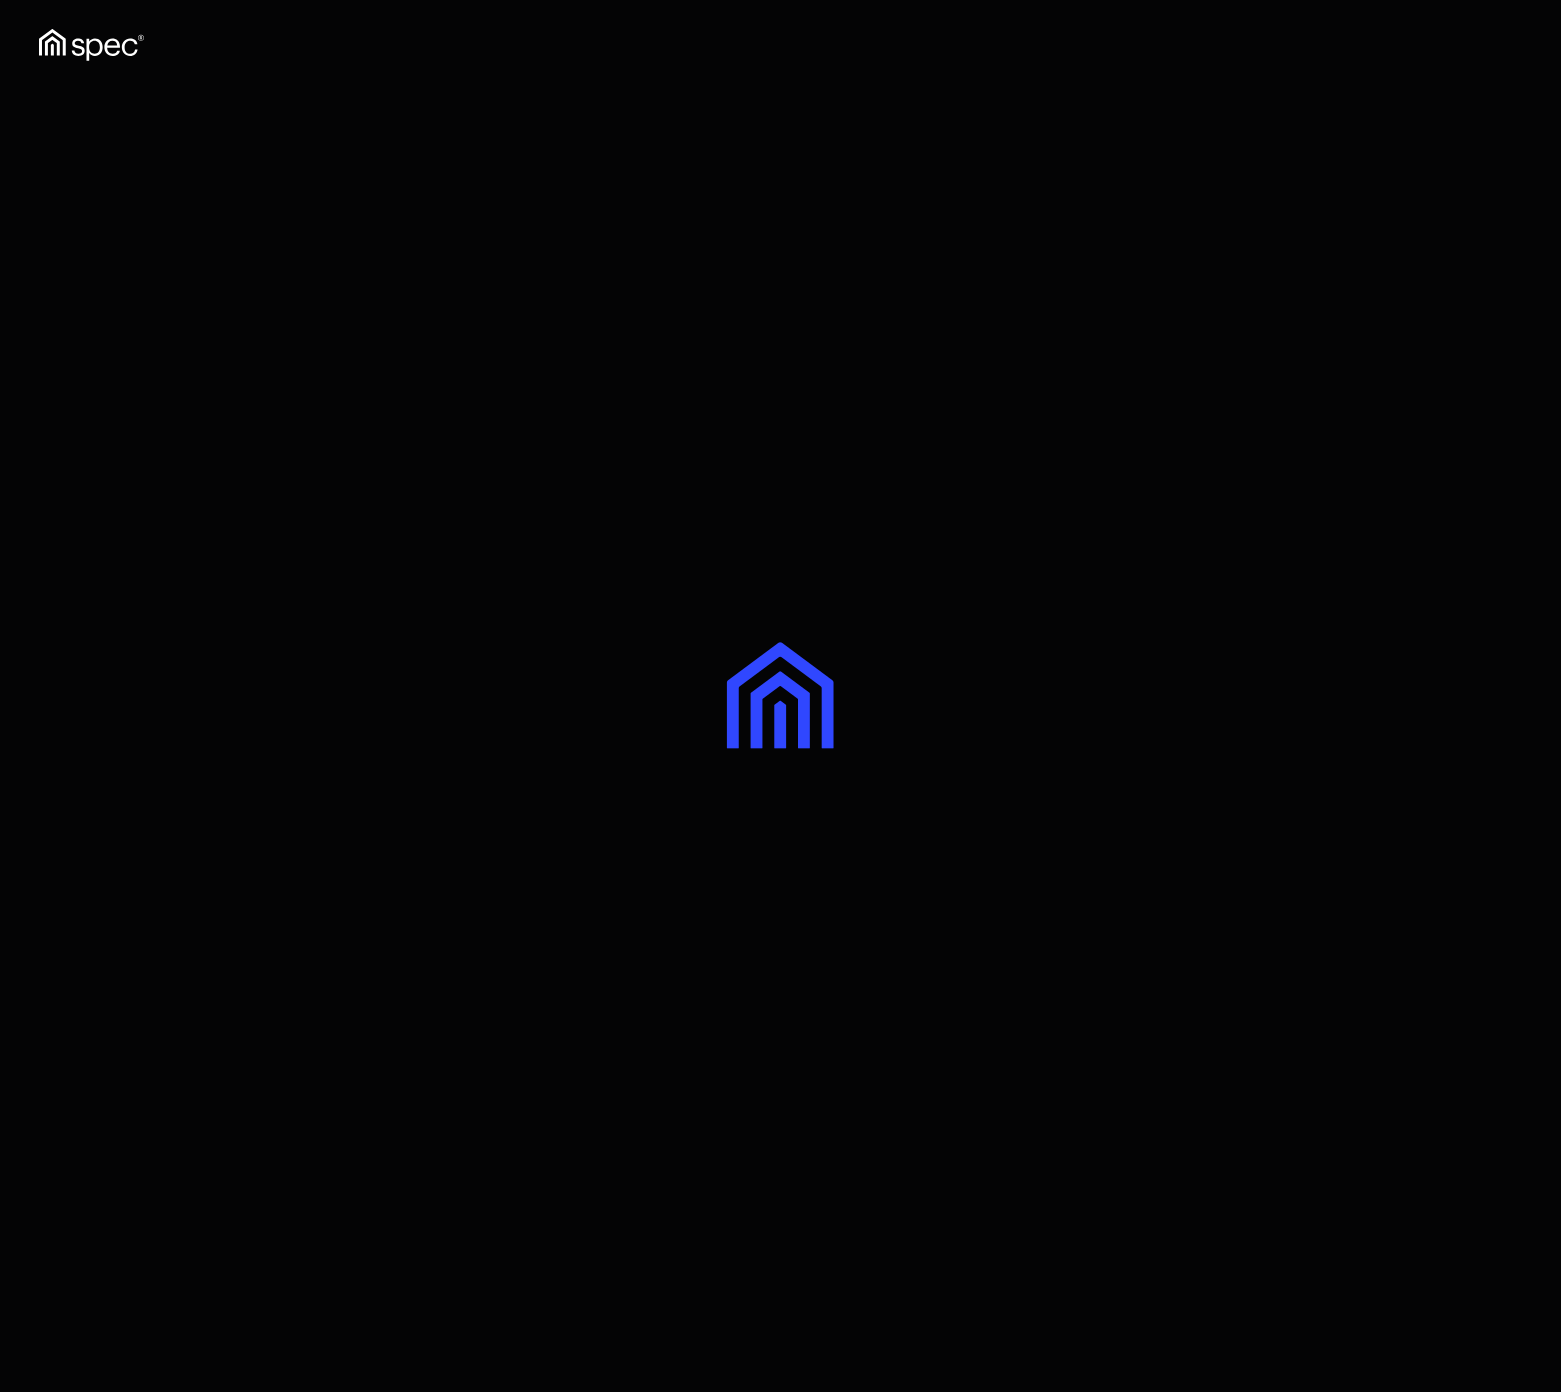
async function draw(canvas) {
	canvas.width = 1561;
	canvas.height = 1392;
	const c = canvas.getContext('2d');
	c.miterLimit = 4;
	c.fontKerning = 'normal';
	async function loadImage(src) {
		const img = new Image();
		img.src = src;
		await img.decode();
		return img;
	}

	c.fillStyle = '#040405';
	c.fillRect(0, 0, 1561, 1392);
	c.drawImage(await loadImage('img1.png'), 39, 29, 105, 32);
	c.drawImage(await loadImage('img2.png'), 726, 642, 108, 107);
}

draw(document.querySelector('canvas'));
